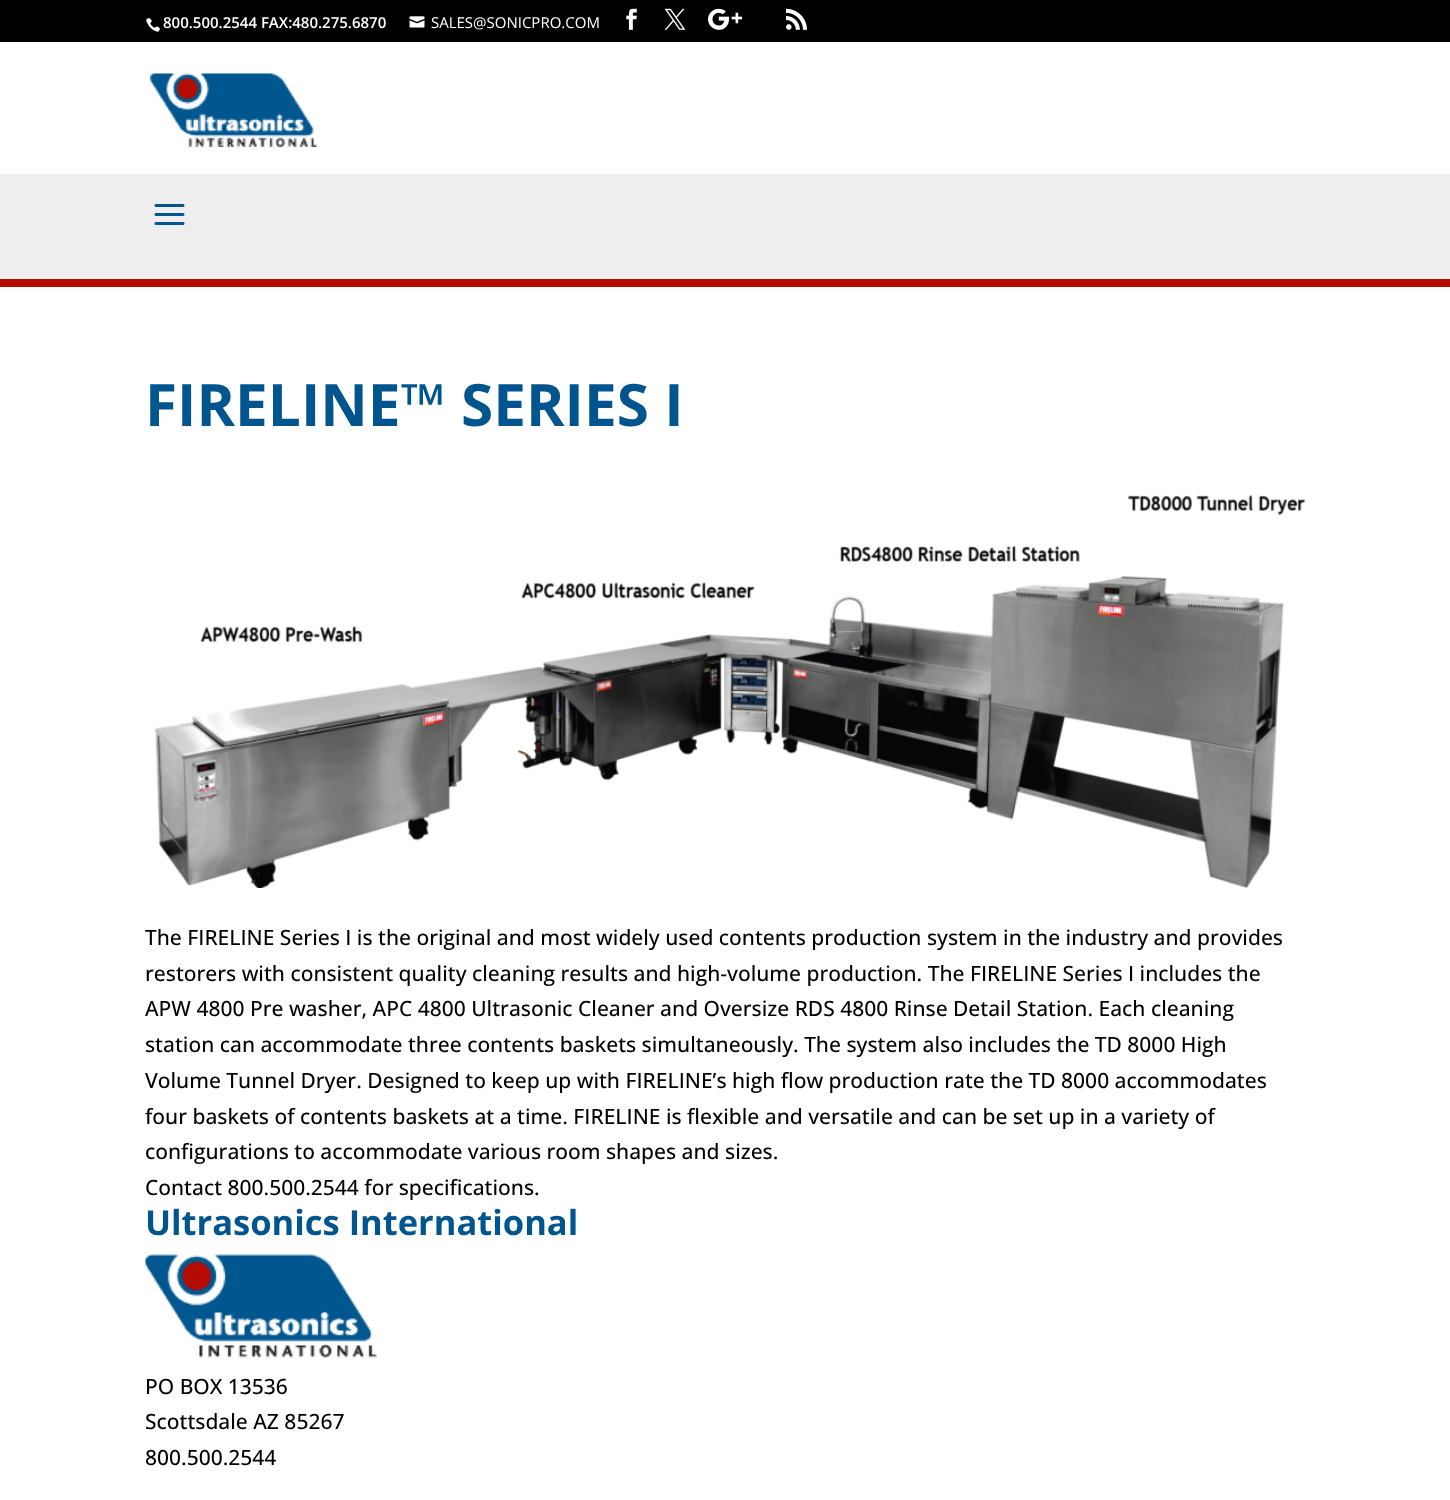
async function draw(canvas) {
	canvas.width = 1450;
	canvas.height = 1500;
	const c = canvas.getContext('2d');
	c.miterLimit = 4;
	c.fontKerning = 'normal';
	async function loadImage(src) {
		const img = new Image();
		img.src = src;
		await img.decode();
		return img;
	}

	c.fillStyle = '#fff';
	c.fillRect(0, 0, 1450, 1500);
	c.fillStyle = '#000';
	c.fillRect(0, 0, 1450, 42);
	c.drawImage(await loadImage('img1.png'), 146, 18, 14, 14);
	c.font = '600 15px Open Sans';
	c.fillStyle = '#fff';
	c.fillText('800.500.2544 FAX:480.275.6870', 163, 28);
	c.drawImage(await loadImage('img2.png'), 409, 16, 16, 12);
	c.font = '15px Open Sans';
	c.fillText('SALES@SONICPRO.COM', 431, 28);
	c.drawImage(await loadImage('img3.png'), 626, 8, 11, 22);
	c.drawImage(await loadImage('img4.png'), 664, 8, 22, 22);
	c.drawImage(await loadImage('img5.png'), 708, 8, 35, 22);
	c.drawImage(await loadImage('img6.png'), 786, 8, 21, 22);
	c.fillStyle = '#eee';
	c.fillRect(0, 174, 1450, 105);
	c.drawImage(await loadImage('img7.png'), 150, 73, 167, 74);
	c.drawImage(await loadImage('img8.png'), 154, 204, 31, 21);
	c.fillStyle = '#b60b00';
	c.fillRect(0, 279, 1450, 8);
	c.font = 'bold 58.5px Open Sans';
	c.fillStyle = '#00558e';
	c.fillText('FIRELINE™ SERIES I', 145, 426);
	c.drawImage(await loadImage('img9.png'), 154, 484, 1151, 404);
	c.font = '500 21px Open Sans';
	c.fillStyle = '#000';
	for (const [text, x, y] of [
		['The FIRELINE Series I is the original and most widely used contents production system in the industry and provides', 145, 945],
		['restorers with consistent quality cleaning results and high-volume production. The FIRELINE Series I includes the', 145, 981],
		['APW 4800 Pre washer, APC 4800 Ultrasonic Cleaner and Oversize RDS 4800 Rinse Detail Station. Each cleaning', 145, 1016],
		['station can accommodate three contents baskets simultaneously. The system also includes the TD 8000 High', 145, 1052],
		['Volume Tunnel Dryer. Designed to keep up with FIRELINE’s high flow production rate the TD 8000 accommodates', 145, 1088],
		['four baskets of contents baskets at a time. FIRELINE is flexible and versatile and can be set up in a variety of', 145, 1124],
		['configurations to accommodate various room shapes and sizes.', 145, 1159],
		['Contact 800.500.2544 for specifications.', 145, 1195],
	]) {
		c.fillText(text, x, y);
	}
	c.font = 'bold 34.5px Open Sans';
	c.fillStyle = '#00558e';
	c.fillText('Ultrasonics International', 145, 1235);
	c.drawImage(await loadImage('img10.png'), 145, 1254, 232, 104);
	c.font = '500 21px Open Sans';
	c.fillStyle = '#000';
	for (const [text, x, y] of [
		['PO BOX 13536', 145, 1394],
		['Scottsdale AZ 85267', 145, 1429],
		['800.500.2544', 145, 1465],
	]) {
		c.fillText(text, x, y);
	}
}

draw(document.querySelector('canvas'));
